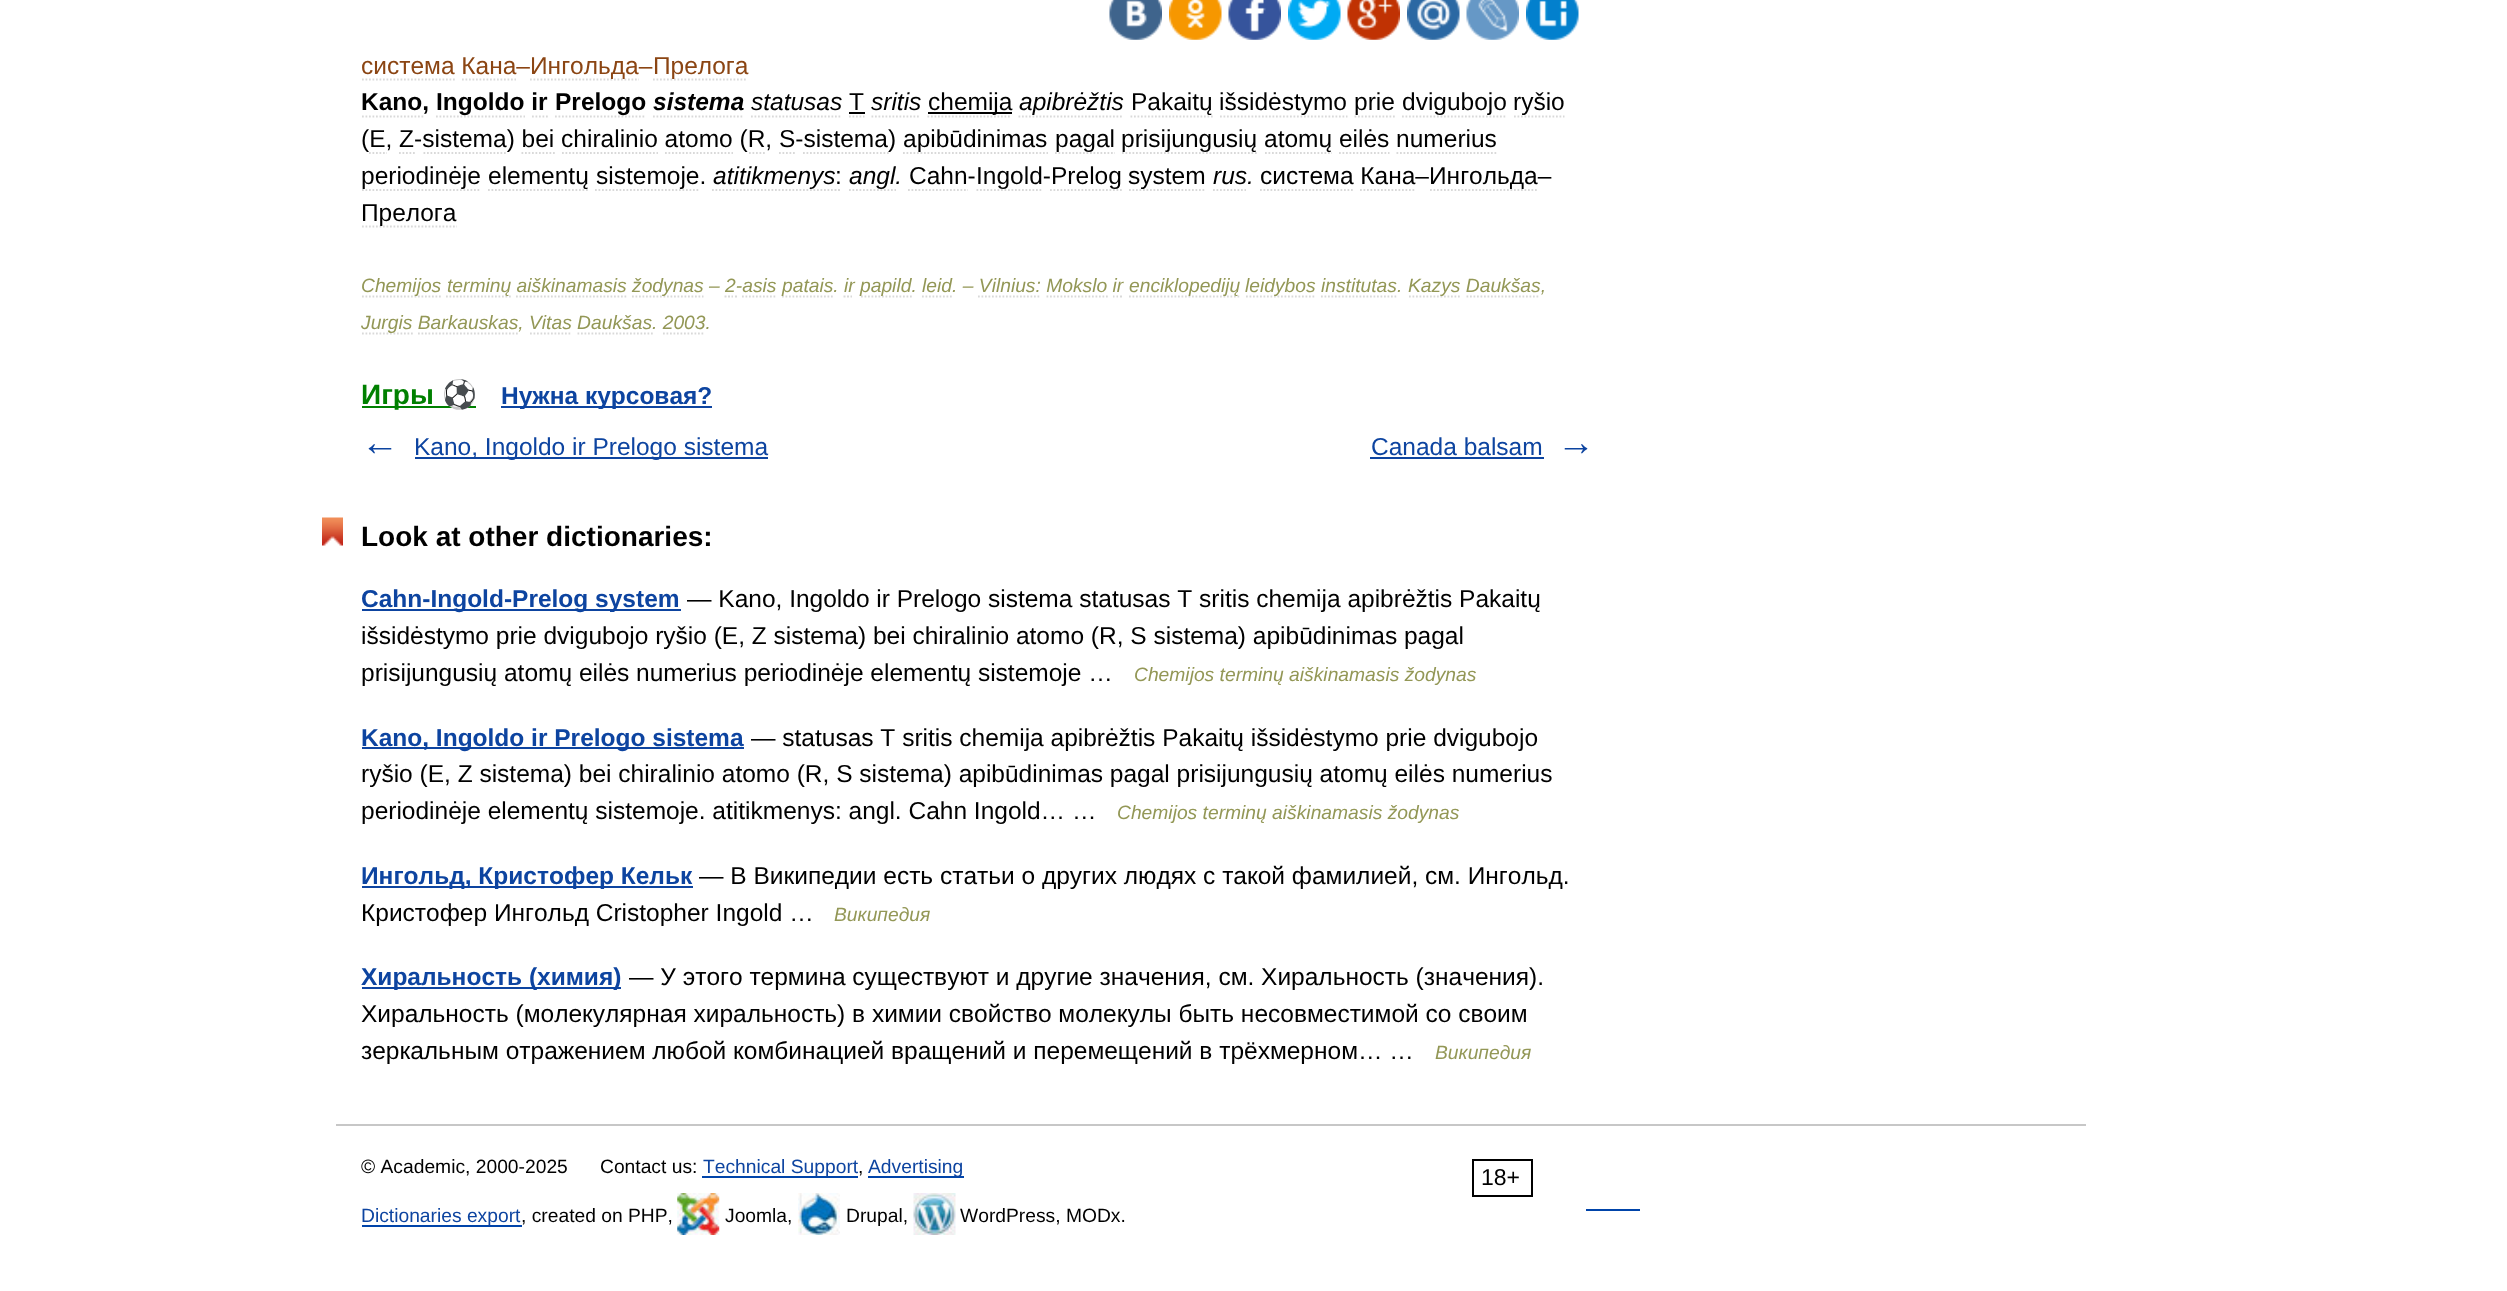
async function draw(canvas) {
	canvas.width = 2507;
	canvas.height = 1291;
	const c = canvas.getContext('2d');
	c.miterLimit = 4;
	c.fontKerning = 'none';
	async function loadImage(src) {
		const img = new Image();
		img.src = src;
		await img.decode();
		return img;
	}

	c.fillStyle = '#fff';
	c.fillRect(0, 0, 2507, 1291);
	c.drawImage(await loadImage('img1.png'), 1109, 0, 53, 40);
	c.drawImage(await loadImage('img2.png'), 1169, 0, 53, 40);
	c.drawImage(await loadImage('img3.png'), 1228, 0, 53, 40);
	c.drawImage(await loadImage('img4.png'), 1288, 0, 53, 40);
	c.drawImage(await loadImage('img5.png'), 1347, 0, 53, 40);
	c.drawImage(await loadImage('img6.png'), 1407, 0, 53, 40);
	c.drawImage(await loadImage('img7.png'), 1466, 0, 53, 40);
	c.drawImage(await loadImage('img8.png'), 1526, 0, 53, 40);
	c.font = '24.5px Liberation Sans';
	c.fillStyle = '#8b4513';
	c.fillText('система Кана–', 361, 74);
	c.beginPath();
	c.moveTo(362, 79.5);
	c.lineTo(455, 79.5);
	c.strokeStyle = '#d9d9d9';
	c.lineWidth = 1.8;
	c.setLineDash([1.75, 1.75]);
	c.stroke();
	c.beginPath();
	c.moveTo(530, 79.5);
	c.lineTo(639, 79.5);
	c.stroke();
	c.fillText('Ингольда–', 530, 74);
	c.beginPath();
	c.moveTo(653, 79.5);
	c.lineTo(747, 79.5);
	c.stroke();
	c.fillText('Прелога', 653, 74);
	c.beginPath();
	c.moveTo(462, 79.5);
	c.lineTo(516, 79.5);
	c.stroke();
	c.font = 'bold 24.5px Liberation Sans';
	c.fillStyle = '#000';
	c.fillText('Kano,', 361, 110);
	c.beginPath();
	c.moveTo(362, 116.5);
	c.lineTo(423.5, 116.5);
	c.stroke();
	c.beginPath();
	c.moveTo(436, 116.5);
	c.lineTo(525, 116.5);
	c.stroke();
	c.fillText('Ingoldo ir', 436, 110);
	c.beginPath();
	c.moveTo(532, 116.5);
	c.lineTo(548, 116.5);
	c.stroke();
	c.beginPath();
	c.moveTo(555, 116.5);
	c.lineTo(646, 116.5);
	c.stroke();
	c.fillText('Prelogo', 555, 110);
	c.font = 'italic bold 24.5px Liberation Sans';
	c.fillText('sistema', 653, 110);
	c.beginPath();
	c.moveTo(653, 116.5);
	c.lineTo(744, 116.5);
	c.stroke();
	c.font = 'italic 24.5px Liberation Sans';
	c.fillText('statusas', 751, 110);
	c.beginPath();
	c.moveTo(751, 116.5);
	c.lineTo(842, 116.5);
	c.stroke();
	c.font = '24.5px Liberation Sans';
	c.fillText('T', 849, 110);
	c.beginPath();
	c.moveTo(849, 116.5);
	c.lineTo(864.5, 116.5);
	c.stroke();
	c.fillRect(849, 112, 16, 2);
	c.font = 'italic 24.5px Liberation Sans';
	c.fillText('sritis', 871, 110);
	c.beginPath();
	c.moveTo(871.5, 116.5);
	c.lineTo(920.5, 116.5);
	c.stroke();
	c.beginPath();
	c.moveTo(927.5, 116.5);
	c.lineTo(1011.5, 116.5);
	c.stroke();
	c.fillRect(928, 112, 84, 2);
	c.font = '24.5px Liberation Sans';
	c.fillText('chemija', 928, 110);
	c.beginPath();
	c.moveTo(1018.5, 116.5);
	c.lineTo(1123.5, 116.5);
	c.stroke();
	c.font = 'italic 24.5px Liberation Sans';
	c.fillText('apibrėžtis', 1019, 110);
	c.beginPath();
	c.moveTo(1130.5, 116.5);
	c.lineTo(1213, 116.5);
	c.stroke();
	c.font = '24.5px Liberation Sans';
	c.fillText('Pakaitų', 1131, 110);
	c.beginPath();
	c.moveTo(1220, 116.5);
	c.lineTo(1347.5, 116.5);
	c.stroke();
	c.fillText('išsidėstymo', 1219, 110);
	c.beginPath();
	c.moveTo(1354.5, 116.5);
	c.lineTo(1395, 116.5);
	c.stroke();
	c.fillText('prie', 1354, 110);
	c.beginPath();
	c.moveTo(1402, 116.5);
	c.lineTo(1507, 116.5);
	c.stroke();
	c.fillText('dvigubojo', 1402, 110);
	c.beginPath();
	c.moveTo(1514, 116.5);
	c.lineTo(1564.5, 116.5);
	c.stroke();
	c.fillText('ryšio', 1513, 110);
	c.fillText('(E, Z-sistema) bei chiralinio atomo (R, S-sistema', 361, 147);
	c.beginPath();
	c.moveTo(803, 153);
	c.lineTo(889, 153);
	c.stroke();
	c.fillText(')', 888, 147);
	c.beginPath();
	c.moveTo(903, 153);
	c.lineTo(1048, 153);
	c.stroke();
	c.fillText('apibūdinimas', 903, 147);
	c.beginPath();
	c.moveTo(1055, 153);
	c.lineTo(1115, 153);
	c.stroke();
	c.fillText('pagal', 1055, 147);
	c.beginPath();
	c.moveTo(1122, 153);
	c.lineTo(1258, 153);
	c.stroke();
	c.fillText('prisijungusių', 1121, 147);
	c.beginPath();
	c.moveTo(1265, 153);
	c.lineTo(1332, 153);
	c.stroke();
	c.fillText('atomų eilės numerius', 1264, 147);
	c.beginPath();
	c.moveTo(369, 153);
	c.lineTo(387, 153);
	c.moveTo(399, 153);
	c.lineTo(415, 153);
	c.stroke();
	c.beginPath();
	c.moveTo(423.5, 153);
	c.lineTo(507.5, 153);
	c.stroke();
	c.beginPath();
	c.moveTo(521.5, 153);
	c.lineTo(555, 153);
	c.stroke();
	c.beginPath();
	c.moveTo(562, 153);
	c.lineTo(658, 153);
	c.stroke();
	c.beginPath();
	c.moveTo(665, 153);
	c.lineTo(733, 153);
	c.stroke();
	c.beginPath();
	c.moveTo(749, 153);
	c.lineTo(766.5, 153);
	c.moveTo(779, 153);
	c.lineTo(796, 153);
	c.stroke();
	c.beginPath();
	c.moveTo(1339, 153);
	c.lineTo(1389.5, 153);
	c.stroke();
	c.beginPath();
	c.moveTo(1396.5, 153);
	c.lineTo(1498, 153);
	c.stroke();
	c.beginPath();
	c.moveTo(362, 190);
	c.lineTo(481, 190);
	c.stroke();
	c.fillText('periodinėje', 361, 184);
	c.beginPath();
	c.moveTo(488, 190);
	c.lineTo(588, 190);
	c.stroke();
	c.fillText('elementų', 488, 184);
	c.beginPath();
	c.moveTo(595, 190);
	c.lineTo(700, 190);
	c.stroke();
	c.fillText('sistemoje.', 596, 184);
	c.beginPath();
	c.moveTo(712, 190);
	c.lineTo(835, 190);
	c.stroke();
	c.font = 'italic 24.5px Liberation Sans';
	c.fillText('atitikmenys', 713, 184);
	c.font = '24.5px Liberation Sans';
	c.fillText(':', 835, 184);
	c.beginPath();
	c.moveTo(835, 190);
	c.lineTo(836.5, 190);
	c.moveTo(838, 190);
	c.lineTo(840, 190);
	c.setLineDash([]);
	c.stroke();
	c.beginPath();
	c.moveTo(849, 190);
	c.lineTo(896, 190);
	c.setLineDash([1.75, 1.75]);
	c.stroke();
	c.font = 'italic 24.5px Liberation Sans';
	c.fillText('angl.', 849, 184);
	c.font = '24.5px Liberation Sans';
	c.fillText('Cahn-', 909, 184);
	c.beginPath();
	c.moveTo(908, 190);
	c.lineTo(968, 190);
	c.stroke();
	c.beginPath();
	c.moveTo(976.5, 190);
	c.lineTo(1043, 190);
	c.stroke();
	c.fillText('Ingold-', 976, 184);
	c.beginPath();
	c.moveTo(1050, 190);
	c.lineTo(1122, 190);
	c.stroke();
	c.fillText('Prelog', 1051, 184);
	c.beginPath();
	c.moveTo(1129, 190);
	c.lineTo(1206, 190);
	c.stroke();
	c.fillText('system', 1128, 184);
	c.font = 'italic 24.5px Liberation Sans';
	c.fillText('rus.', 1213, 184);
	c.beginPath();
	c.moveTo(1213, 190);
	c.lineTo(1246, 190);
	c.stroke();
	c.font = '24.5px Liberation Sans';
	c.fillText('система Кана–Ингольда–', 1260, 184);
	c.beginPath();
	c.moveTo(1260, 190);
	c.lineTo(1354.5, 190);
	c.stroke();
	c.beginPath();
	c.moveTo(1360, 190);
	c.lineTo(1416, 190);
	c.stroke();
	c.beginPath();
	c.moveTo(1430, 190);
	c.lineTo(1538, 190);
	c.stroke();
	c.beginPath();
	c.moveTo(362, 226.5);
	c.lineTo(457, 226.5);
	c.stroke();
	c.fillText('Прелога', 361, 221);
	c.beginPath();
	c.moveTo(362, 296.5);
	c.lineTo(441, 296.5);
	c.stroke();
	c.font = 'italic 19.25px Liberation Sans';
	c.fillStyle = '#939756';
	c.fillText('Chemijos', 361, 292);
	c.beginPath();
	c.moveTo(446, 296.5);
	c.lineTo(511, 296.5);
	c.stroke();
	c.fillText('terminų aiškinamasis', 447, 292);
	c.beginPath();
	c.moveTo(516, 296.5);
	c.lineTo(626.5, 296.5);
	c.stroke();
	c.beginPath();
	c.moveTo(632, 296.5);
	c.lineTo(703.5, 296.5);
	c.stroke();
	c.fillText('žodynas – 2-asis', 632, 292);
	c.beginPath();
	c.moveTo(724.5, 296.5);
	c.lineTo(726.5, 296.5);
	c.moveTo(728, 296.5);
	c.lineTo(730, 296.5);
	c.moveTo(731.5, 296.5);
	c.lineTo(733, 296.5);
	c.moveTo(735, 296.5);
	c.lineTo(737, 296.5);
	c.setLineDash([]);
	c.stroke();
	c.beginPath();
	c.moveTo(742, 296.5);
	c.lineTo(777, 296.5);
	c.setLineDash([1.75, 1.75]);
	c.stroke();
	c.beginPath();
	c.moveTo(782, 296.5);
	c.lineTo(833, 296.5);
	c.stroke();
	c.fillText('patais. ir', 782, 292);
	c.beginPath();
	c.moveTo(843.5, 296.5);
	c.lineTo(845.5, 296.5);
	c.moveTo(847, 296.5);
	c.lineTo(849, 296.5);
	c.moveTo(850.5, 296.5);
	c.lineTo(852, 296.5);
	c.setLineDash([]);
	c.stroke();
	c.beginPath();
	c.moveTo(861, 296.5);
	c.lineTo(912, 296.5);
	c.setLineDash([1.75, 1.75]);
	c.stroke();
	c.fillText('papild. leid. – Vilnius: Mokslo ir', 860, 292);
	c.beginPath();
	c.moveTo(922, 296.5);
	c.lineTo(952, 296.5);
	c.stroke();
	c.beginPath();
	c.moveTo(978, 296.5);
	c.lineTo(1041, 296.5);
	c.stroke();
	c.beginPath();
	c.moveTo(1046.5, 296.5);
	c.lineTo(1108, 296.5);
	c.stroke();
	c.beginPath();
	c.moveTo(1113, 296.5);
	c.lineTo(1114.5, 296.5);
	c.moveTo(1116.5, 296.5);
	c.lineTo(1118, 296.5);
	c.moveTo(1120, 296.5);
	c.lineTo(1122, 296.5);
	c.setLineDash([]);
	c.stroke();
	c.beginPath();
	c.moveTo(1129, 296.5);
	c.lineTo(1241, 296.5);
	c.setLineDash([1.75, 1.75]);
	c.stroke();
	c.fillText('enciklopedijų', 1129, 292);
	c.beginPath();
	c.moveTo(1246, 296.5);
	c.lineTo(1316, 296.5);
	c.stroke();
	c.fillText('leidybos institutas.', 1245, 292);
	c.beginPath();
	c.moveTo(1321, 296.5);
	c.lineTo(1398, 296.5);
	c.stroke();
	c.beginPath();
	c.moveTo(1409, 296.5);
	c.lineTo(1461, 296.5);
	c.stroke();
	c.fillText('Kazys Daukšas,', 1408, 292);
	c.beginPath();
	c.moveTo(1466.5, 296.5);
	c.lineTo(1540, 296.5);
	c.stroke();
	c.beginPath();
	c.moveTo(362, 333.5);
	c.lineTo(413, 333.5);
	c.stroke();
	c.fillText('Jurgis Barkauskas, Vitas Daukšas. 2003.', 361, 329);
	c.beginPath();
	c.moveTo(418, 333.5);
	c.lineTo(518, 333.5);
	c.stroke();
	c.beginPath();
	c.moveTo(530, 333.5);
	c.lineTo(572, 333.5);
	c.stroke();
	c.beginPath();
	c.moveTo(577.5, 333.5);
	c.lineTo(653, 333.5);
	c.stroke();
	c.beginPath();
	c.moveTo(663, 333.5);
	c.lineTo(705, 333.5);
	c.stroke();
	c.fillStyle = '#008000';
	c.fillRect(362, 406, 114, 2);
	c.font = 'bold 28px Liberation Sans';
	c.fillText('Игры', 361, 404);
	c.font = 'bold 28px Noto Color Emoji';
	c.fillText('⚽', 442, 404);
	c.fillStyle = '#0d44a0';
	c.fillRect(501, 406, 211, 2);
	c.font = 'bold 24.5px Liberation Sans';
	c.fillText('Нужна курсовая?', 501, 404);
	c.font = 'bold 38px Liberation Sans';
	c.fillText('←', 361, 455);
	c.fillRect(415, 457, 353, 2);
	c.font = '24.5px Liberation Sans';
	c.fillText('Kano, Ingoldo ir Prelogo sistema', 414, 455);
	c.fillText('Canada balsam', 1371, 455);
	c.fillRect(1370, 457, 174, 2);
	c.font = 'bold 38px Liberation Sans';
	c.fillText('→', 1557, 455);
	c.drawImage(await loadImage('img9.png'), 322, 517, 21, 29);
	c.font = 'bold 28px Liberation Sans';
	c.fillStyle = '#000';
	c.fillText('Look at other dictionaries:', 361, 546);
	c.fillStyle = '#0d44a0';
	c.fillRect(362, 609, 319, 2);
	c.font = 'bold 24.5px Liberation Sans';
	c.fillText('Cahn-Ingold-Prelog system', 361, 607);
	c.font = '24.5px Liberation Sans';
	c.fillStyle = '#000';
	for (const [text, x, y] of [
		['— Kano, Ingoldo ir Prelogo sistema statusas T sritis chemija apibrėžtis Pakaitų', 687, 607],
		['išsidėstymo prie dvigubojo ryšio (E, Z sistema) bei chiralinio atomo (R, S sistema) apibūdinimas pagal', 361, 644],
		['prisijungusių atomų eilės numerius periodinėje elementų sistemoje …', 361, 681],
	]) {
		c.fillText(text, x, y);
	}
	c.font = 'italic 19.25px Liberation Sans';
	c.fillStyle = '#939756';
	c.fillText('Chemijos terminų aiškinamasis žodynas', 1134, 681);
	c.fillStyle = '#0d44a0';
	c.fillRect(362, 747, 382, 2);
	c.font = 'bold 24.5px Liberation Sans';
	c.fillText('Kano, Ingoldo ir Prelogo sistema', 361, 746);
	c.font = '24.5px Liberation Sans';
	c.fillStyle = '#000';
	for (const [text, x, y] of [
		['— statusas T sritis chemija apibrėžtis Pakaitų išsidėstymo prie dvigubojo', 751, 746],
		['ryšio (E, Z sistema) bei chiralinio atomo (R, S sistema) apibūdinimas pagal prisijungusių atomų eilės numerius', 361, 782],
		['periodinėje elementų sistemoje. atitikmenys: angl. Cahn Ingold… …', 361, 819],
	]) {
		c.fillText(text, x, y);
	}
	c.font = 'italic 19.25px Liberation Sans';
	c.fillStyle = '#939756';
	c.fillText('Chemijos terminų aiškinamasis žodynas', 1117, 819);
	c.fillStyle = '#0d44a0';
	c.fillRect(362, 886, 331, 2);
	c.font = 'bold 24.5px Liberation Sans';
	c.fillText('Ингольд, Кристофер Кельк', 361, 884);
	c.font = '24.5px Liberation Sans';
	c.fillStyle = '#000';
	c.fillText('— В Википедии есть статьи о других людях с такой фамилией, см. Ингольд.', 699, 884);
	c.fillText('Кристофер Ингольд Cristopher Ingold …', 361, 921);
	c.font = 'italic 19.25px Liberation Sans';
	c.fillStyle = '#939756';
	c.fillText('Википедия', 834, 921);
	c.fillStyle = '#0d44a0';
	c.fillRect(362, 987, 259, 2);
	c.font = 'bold 24.5px Liberation Sans';
	c.fillText('Хиральность (химия)', 361, 985);
	c.font = '24.5px Liberation Sans';
	c.fillStyle = '#000';
	for (const [text, x, y] of [
		['— У этого термина существуют и другие значения, см. Хиральность (значения).', 629, 985],
		['Хиральность (молекулярная хиральность) в химии свойство молекулы быть несовместимой со своим', 361, 1022],
		['зеркальным отражением любой комбинацией вращений и перемещений в трёхмерном… …', 361, 1059],
	]) {
		c.fillText(text, x, y);
	}
	c.font = 'italic 19.25px Liberation Sans';
	c.fillStyle = '#939756';
	c.fillText('Википедия', 1435, 1059);
	c.fillStyle = '#c7c7c7';
	c.fillRect(336, 1124, 1750, 2);
	c.font = '19.25px Liberation Sans';
	c.fillStyle = '#000';
	c.fillText('© Academic, 2000-2025', 361, 1173);
	c.fillText('Contact us:', 600, 1173);
	c.fillStyle = '#04a';
	c.fillRect(702, 1176, 156, 2);
	c.fillStyle = '#0d44a0';
	c.fillText('Technical Support', 703, 1173);
	c.fillStyle = '#000';
	c.fillText(',', 858, 1173);
	c.fillStyle = '#04a';
	c.fillRect(868, 1176, 96, 2);
	c.fillStyle = '#0d44a0';
	c.fillText('Advertising', 868, 1173);
	c.strokeStyle = '#000';
	c.lineWidth = 2;
	c.setLineDash([]);
	c.strokeRect(1473, 1160, 59, 36);
	c.font = '23px Liberation Sans';
	c.fillStyle = '#000';
	c.fillText('18+', 1481, 1185);
	c.fillStyle = '#04a';
	c.fillRect(362, 1225, 160, 2);
	c.font = '19.25px Liberation Sans';
	c.fillStyle = '#0d44a0';
	c.fillText('Dictionaries export', 361, 1222);
	c.fillStyle = '#000';
	c.fillText(', created on PHP,', 521, 1222);
	c.drawImage(await loadImage('img10.png'), 677, 1193, 43, 42);
	c.fillText('Joomla,', 725, 1222);
	c.drawImage(await loadImage('img11.png'), 798, 1193, 42, 42);
	c.fillText('Drupal,', 846, 1222);
	c.drawImage(await loadImage('img12.png'), 913, 1193, 43, 42);
	c.fillText('WordPress, MODx.', 960, 1222);
	c.fillStyle = '#04a';
	c.fillRect(1586, 1209, 54, 2);
}

draw(document.querySelector('canvas'));
